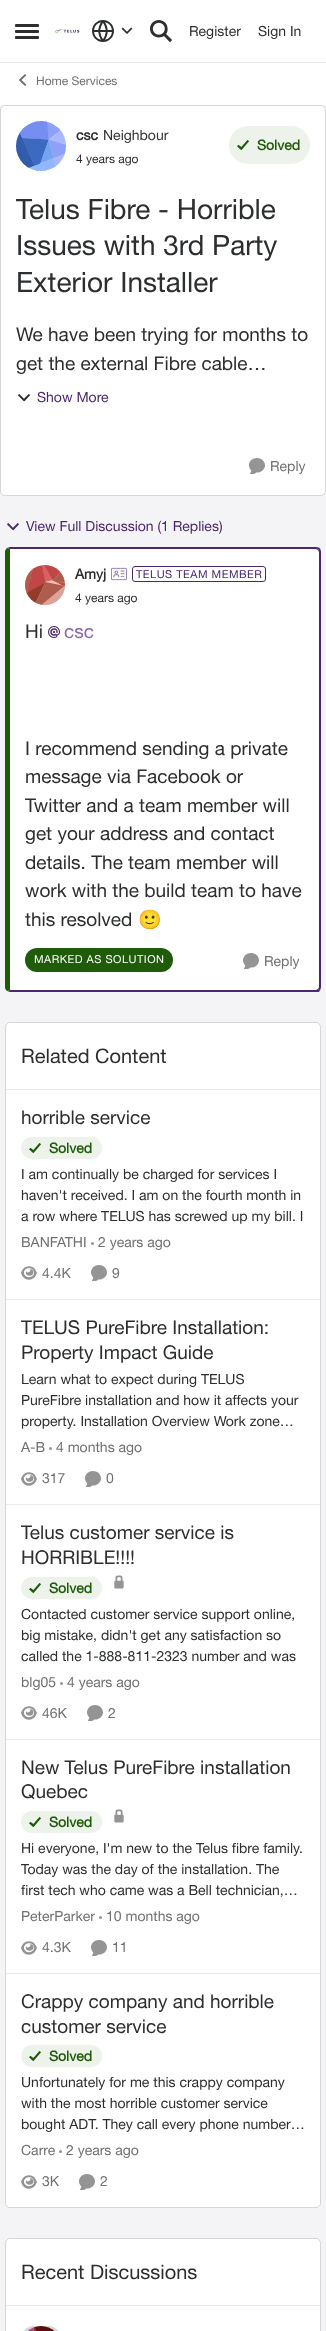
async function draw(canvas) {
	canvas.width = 326;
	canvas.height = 2331;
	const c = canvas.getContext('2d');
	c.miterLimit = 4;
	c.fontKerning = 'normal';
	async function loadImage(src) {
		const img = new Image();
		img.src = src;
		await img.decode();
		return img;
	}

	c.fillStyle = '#f4f4f7';
	c.fillRect(0, 0, 326, 2331);
	c.fillStyle = '#fff';
	c.fillRect(0, 0, 326, 105);
	c.fillStyle = '#ebebeb';
	c.fillRect(0, 62, 326, 1);
	c.fillStyle = '#2c2e30';
	c.beginPath();
	c.roundRect(15, 24, 24, 3, 1);
	c.fill();
	c.beginPath();
	c.roundRect(15, 30, 24, 3, 1);
	c.fill();
	c.beginPath();
	c.roundRect(15, 36, 24, 3, 1);
	c.fill();
	c.drawImage(await loadImage('img1.png'), 55, 29, 25, 4);
	c.drawImage(await loadImage('img2.png'), 92, 20, 22, 22);
	c.drawImage(await loadImage('img3.png'), 121, 27, 12, 7);
	c.drawImage(await loadImage('img4.png'), 150, 20, 22, 23);
	c.font = '14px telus';
	c.fillText('Register', 189, 36);
	c.fillText('Sign In', 258, 36);
	c.drawImage(await loadImage('img5.png'), 19, 74, 8, 12);
	c.font = '12px telus';
	c.fillStyle = '#707070';
	c.fillText('Home Services', 36, 85);
	c.fillStyle = '#fff';
	c.beginPath();
	c.roundRect(0, 105, 326, 391, 5);
	c.fill();
	c.beginPath();
	c.roundRect(0.5, 105.5, 325, 390, 4.5);
	c.strokeStyle = '#00000029';
	c.stroke();
	c.fillStyle = '#d9d9d9';
	c.beginPath();
	c.arc(41, 146, 25, 0, 2 * Math.PI);
	c.fill();
	c.drawImage(await loadImage('img6.png'), 16, 121, 50, 50);
	c.font = 'bold 14px telus';
	c.fillStyle = '#2c2e30';
	c.fillText('csc', 76, 140);
	c.font = '14px telus';
	c.fillStyle = '#333';
	c.fillText('Neighbour', 103, 140);
	c.font = '12px telus';
	c.fillStyle = '#2c2e30';
	c.fillText('4 years ago', 76, 163);
	c.fillStyle = '#edf2eb';
	c.beginPath();
	c.roundRect(229, 126, 81, 38, 19);
	c.fill();
	c.drawImage(await loadImage('img7.png'), 237, 140, 12, 10);
	c.font = 'bold 14px telus';
	c.fillStyle = '#1f5c09';
	c.fillText('Solved', 257, 150);
	c.font = '28px telus';
	c.fillStyle = '#2c2e30';
	for (const [text, x, y] of [
		['Telus Fibre - Horrible', 16, 219],
		['Issues with 3rd Party', 16, 255],
		['Exterior Installer', 16, 292],
	]) {
		c.fillText(text, x, y);
	}
	c.font = '19px telus';
	c.fillText('We have been trying for months to', 16, 341);
	c.fillText('get the external Fibre cable…', 16, 370);
	c.drawImage(await loadImage('img8.png'), 18, 394, 12, 8);
	c.font = '14px telus';
	c.fillStyle = '#4b286d';
	c.fillText('Show More', 37, 402);
	c.drawImage(await loadImage('img9.png'), 249, 458, 16, 16);
	c.fillStyle = '#707070';
	c.fillText('Reply', 270, 471);
	c.drawImage(await loadImage('img10.png'), 7, 523, 12, 8);
	c.fillStyle = '#4b286d';
	c.fillText('View Full Discussion (1 Replies)', 26, 531);
	c.fillStyle = '#fff';
	c.beginPath();
	c.moveTo(10, 549);
	c.lineTo(316, 549);
	c.bezierCurveTo(318, 549, 319, 550, 319, 552);
	c.lineTo(319, 987);
	c.bezierCurveTo(319, 989, 318, 990, 316, 990);
	c.lineTo(10, 990);
	c.closePath();
	c.fill();
	c.fillStyle = '#4b286d';
	c.beginPath();
	c.moveTo(10, 547);
	c.lineTo(7, 548);
	c.lineTo(10, 549);
	c.lineTo(316, 549);
	c.lineTo(318, 550);
	c.lineTo(320, 548);
	c.bezierCurveTo(319, 548, 318, 547, 316, 547);
	c.closePath();
	c.fill();
	c.beginPath();
	c.moveTo(321, 987);
	c.lineTo(321, 552);
	c.bezierCurveTo(321, 550, 320, 549, 320, 548);
	c.lineTo(318, 550);
	c.lineTo(319, 552);
	c.lineTo(319, 987);
	c.lineTo(318, 989);
	c.lineTo(320, 991);
	c.bezierCurveTo(320, 990, 321, 988, 321, 987);
	c.closePath();
	c.fill();
	c.beginPath();
	c.moveTo(10, 992);
	c.lineTo(316, 992);
	c.bezierCurveTo(318, 992, 319, 992, 320, 991);
	c.lineTo(318, 989);
	c.lineTo(316, 990);
	c.lineTo(10, 990);
	c.lineTo(7, 991);
	c.closePath();
	c.fill();
	c.fillStyle = '#1f5c09';
	c.beginPath();
	c.moveTo(10, 549);
	c.lineTo(7, 548);
	c.bezierCurveTo(6, 549, 5, 550, 5, 552);
	c.lineTo(5, 987);
	c.bezierCurveTo(5, 989, 6, 990, 7, 991);
	c.lineTo(10, 990);
	c.closePath();
	c.fill();
	c.fillStyle = '#d9d9d9';
	c.beginPath();
	c.arc(45, 585, 20, 0, 2 * Math.PI);
	c.fill();
	c.drawImage(await loadImage('img11.png'), 25, 565, 40, 40);
	c.font = 'bold 14px telus';
	c.fillStyle = '#2c2e30';
	c.fillText('Amyj', 75, 579);
	c.drawImage(await loadImage('img12.png'), 111, 567, 16, 14);
	c.beginPath();
	c.roundRect(132.5, 566.5, 133, 15, 2.5);
	c.strokeStyle = '#4b286d';
	c.stroke();
	c.letterSpacing = '0.5px';
	c.font = '11px telus';
	c.fillStyle = '#4b286d';
	c.fillText('TELUS TEAM MEMBER', 136, 578);
	c.letterSpacing = '0px';
	c.font = '12px telus';
	c.fillStyle = '#2c2e30';
	c.fillText('4 years ago', 75, 602);
	c.font = '19px telus';
	c.fillText('Hi', 25, 638);
	c.drawImage(await loadImage('img13.png'), 48, 626, 12, 12);
	c.fillStyle = '#8c68a6';
	c.fillText('csc', 64, 638);
	c.fillStyle = '#2c2e30';
	for (const [text, x, y] of [
		['I recommend sending a private', 25, 755],
		['message via Facebook or', 25, 783],
		['Twitter and a team member will', 25, 812],
		['get your address and contact', 25, 840],
		['details. The team member will', 25, 869],
		['work with the build team to have', 25, 897],
		['this resolved', 25, 926],
	]) {
		c.fillText(text, x, y);
	}
	c.font = '19px Noto Color Emoji';
	c.fillText('🙂', 138, 926);
	c.fillStyle = '#1f5c09';
	c.beginPath();
	c.roundRect(25, 948, 148, 24, 12);
	c.fill();
	c.letterSpacing = '0.5px';
	c.font = '11px telus';
	c.fillStyle = '#fff';
	c.fillText('MARKED AS SOLUTION', 34, 963);
	c.drawImage(await loadImage('img14.png'), 243, 953, 16, 16);
	c.letterSpacing = '0px';
	c.font = '14px telus';
	c.fillStyle = '#707070';
	c.fillText('Reply', 264, 966);
	c.fillStyle = '#fff';
	c.beginPath();
	c.roundRect(5, 1022, 316, 1186, 5);
	c.fill();
	c.beginPath();
	c.roundRect(5.5, 1022.5, 315, 1185, 4.5);
	c.strokeStyle = '#00000029';
	c.stroke();
	c.fillStyle = '#ebebeb';
	c.fillRect(6, 1089, 314, 1);
	c.font = '20px telus';
	c.fillStyle = '#2c2e30';
	c.fillText('Related Content', 21, 1063);
	c.fillStyle = '#ebebeb';
	c.fillRect(6, 1299, 314, 1);
	c.font = '19px telus';
	c.fillStyle = '#2c2e30';
	c.fillText('horrible service', 21, 1124);
	c.fillStyle = '#edf2eb';
	c.beginPath();
	c.roundRect(21, 1137, 81, 22, 11);
	c.fill();
	c.drawImage(await loadImage('img15.png'), 29, 1143, 12, 10);
	c.font = 'bold 14px telus';
	c.fillStyle = '#1f5c09';
	c.fillText('Solved', 49, 1153);
	c.font = '14px telus';
	c.fillStyle = '#2c2e30';
	for (const [text, x, y] of [
		['I am continually be charged for services I', 21, 1179],
		['haven\'t received. I am on the fourth month in', 21, 1200],
		['a row where TELUS has screwed up my bill. I', 21, 1221],
	]) {
		c.fillText(text, x, y);
	}
	c.fillStyle = '#707070';
	c.fillText('BANFATHI', 21, 1247);
	c.fillStyle = '#949494';
	c.beginPath();
	c.arc(92.5, 1243.5, 1.5, 0, 2 * Math.PI);
	c.fill();
	c.fillStyle = '#707070';
	c.fillText('2 years ago', 98, 1247);
	c.drawImage(await loadImage('img16.png'), 21, 1266, 16, 14);
	c.fillText('4.4K', 42, 1278);
	c.drawImage(await loadImage('img17.png'), 91, 1265, 16, 16);
	c.fillText('9', 112, 1278);
	c.fillStyle = '#ebebeb';
	c.fillRect(6, 1504, 314, 1);
	c.font = '19px telus';
	c.fillStyle = '#2c2e30';
	c.fillText('TELUS PureFibre Installation:', 21, 1334);
	c.fillText('Property Impact Guide', 21, 1359);
	c.font = '14px telus';
	for (const [text, x, y] of [
		['Learn what to expect during TELUS', 21, 1384],
		['PureFibre installation and how it affects your', 21, 1405],
		['property. Installation Overview Work zone…', 21, 1426],
	]) {
		c.fillText(text, x, y);
	}
	c.fillStyle = '#707070';
	c.fillText('A-B', 21, 1452);
	c.fillStyle = '#949494';
	c.beginPath();
	c.arc(50.5, 1448.5, 1.5, 0, 2 * Math.PI);
	c.fill();
	c.fillStyle = '#707070';
	c.fillText('4 months ago', 56, 1452);
	c.drawImage(await loadImage('img16.png'), 21, 1472, 16, 14);
	c.fillText('317', 42, 1483);
	c.drawImage(await loadImage('img17.png'), 85, 1471, 16, 16);
	c.fillText('0', 106, 1483);
	c.fillStyle = '#ebebeb';
	c.fillRect(6, 1739, 314, 1);
	c.font = '19px telus';
	c.fillStyle = '#2c2e30';
	c.fillText('Telus customer service is', 21, 1539);
	c.fillText('HORRIBLE!!!!', 21, 1564);
	c.fillStyle = '#edf2eb';
	c.beginPath();
	c.roundRect(21, 1577, 81, 22, 11);
	c.fill();
	c.drawImage(await loadImage('img7.png'), 29, 1583, 12, 10);
	c.font = 'bold 14px telus';
	c.fillStyle = '#1f5c09';
	c.fillText('Solved', 49, 1593);
	c.drawImage(await loadImage('img18.png'), 114, 1575, 10, 14);
	c.font = '14px telus';
	c.fillStyle = '#2c2e30';
	for (const [text, x, y] of [
		['Contacted customer service support online,', 21, 1619],
		['big mistake, didn\'t get any satisfaction so', 21, 1640],
		['called the 1-888-811-2323 number and was', 21, 1661],
	]) {
		c.fillText(text, x, y);
	}
	c.fillStyle = '#707070';
	c.fillText('blg05', 21, 1687);
	c.fillStyle = '#949494';
	c.beginPath();
	c.arc(61.5, 1683.5, 1.5, 0, 2 * Math.PI);
	c.fill();
	c.fillStyle = '#707070';
	c.fillText('4 years ago', 67, 1687);
	c.drawImage(await loadImage('img16.png'), 21, 1706, 16, 14);
	c.fillText('46K', 42, 1718);
	c.drawImage(await loadImage('img17.png'), 87, 1705, 16, 16);
	c.fillText('2', 108, 1718);
	c.fillStyle = '#ebebeb';
	c.fillRect(6, 1973, 314, 1);
	c.font = '19px telus';
	c.fillStyle = '#2c2e30';
	c.fillText('New Telus PureFibre installation', 21, 1774);
	c.fillText('Quebec', 21, 1798);
	c.fillStyle = '#edf2eb';
	c.beginPath();
	c.roundRect(21, 1811, 81, 22, 11);
	c.fill();
	c.drawImage(await loadImage('img7.png'), 29, 1817, 12, 10);
	c.font = 'bold 14px telus';
	c.fillStyle = '#1f5c09';
	c.fillText('Solved', 49, 1827);
	c.drawImage(await loadImage('img18.png'), 114, 1809, 10, 14);
	c.font = '14px telus';
	c.fillStyle = '#2c2e30';
	for (const [text, x, y] of [
		['Hi everyone, I\'m new to the Telus fibre family.', 21, 1853],
		['Today was the day of the installation. The', 21, 1874],
		['first tech who came was a Bell technician,…', 21, 1895],
	]) {
		c.fillText(text, x, y);
	}
	c.fillStyle = '#707070';
	c.fillText('PeterParker', 21, 1921);
	c.fillStyle = '#949494';
	c.beginPath();
	c.arc(100.5, 1917.5, 1.5, 0, 2 * Math.PI);
	c.fill();
	c.fillStyle = '#707070';
	c.fillText('10 months ago', 106, 1921);
	c.drawImage(await loadImage('img16.png'), 21, 1941, 16, 14);
	c.fillText('4.3K', 42, 1952);
	c.drawImage(await loadImage('img17.png'), 91, 1940, 16, 16);
	c.fillText('11', 112, 1952);
	c.fillStyle = '#fff';
	c.beginPath();
	c.roundRect(6, 1974, 314, 233, [0, 0, 5, 5]);
	c.fill();
	c.font = '19px telus';
	c.fillStyle = '#2c2e30';
	c.fillText('Crappy company and horrible', 21, 2008);
	c.fillText('customer service', 21, 2033);
	c.fillStyle = '#edf2eb';
	c.beginPath();
	c.roundRect(21, 2045, 81, 22, 11);
	c.fill();
	c.drawImage(await loadImage('img15.png'), 29, 2051, 12, 10);
	c.font = 'bold 14px telus';
	c.fillStyle = '#1f5c09';
	c.fillText('Solved', 49, 2061);
	c.font = '14px telus';
	c.fillStyle = '#2c2e30';
	for (const [text, x, y] of [
		['Unfortunately for me this crappy company', 21, 2087],
		['with the most horrible customer service', 21, 2108],
		['bought ADT. They call every phone number…', 21, 2129],
	]) {
		c.fillText(text, x, y);
	}
	c.fillStyle = '#707070';
	c.fillText('Carre', 21, 2155);
	c.fillStyle = '#949494';
	c.beginPath();
	c.arc(60.5, 2151.5, 1.5, 0, 2 * Math.PI);
	c.fill();
	c.fillStyle = '#707070';
	c.fillText('2 years ago', 66, 2155);
	c.drawImage(await loadImage('img19.png'), 21, 2175, 16, 14);
	c.fillText('3K', 42, 2186);
	c.drawImage(await loadImage('img20.png'), 79, 2174, 16, 16);
	c.fillText('2', 100, 2186);
	c.fillStyle = '#fff';
	c.beginPath();
	c.roundRect(5, 2238, 316, 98, 5);
	c.fill();
	c.beginPath();
	c.roundRect(5.5, 2238.5, 315, 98, 4.5);
	c.stroke();
	c.fillStyle = '#ebebeb';
	c.fillRect(6, 2305, 314, 1);
	c.font = '20px telus';
	c.fillStyle = '#2c2e30';
	c.fillText('Recent Discussions', 21, 2279);
	c.fillStyle = '#d9d9d9';
	c.beginPath();
	c.roundRect(21, 2326, 40, 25, 20);
	c.fill();
	c.drawImage(await loadImage('img21.png'), 28, 2326, 27, 5);
}

draw(document.querySelector('canvas'));
